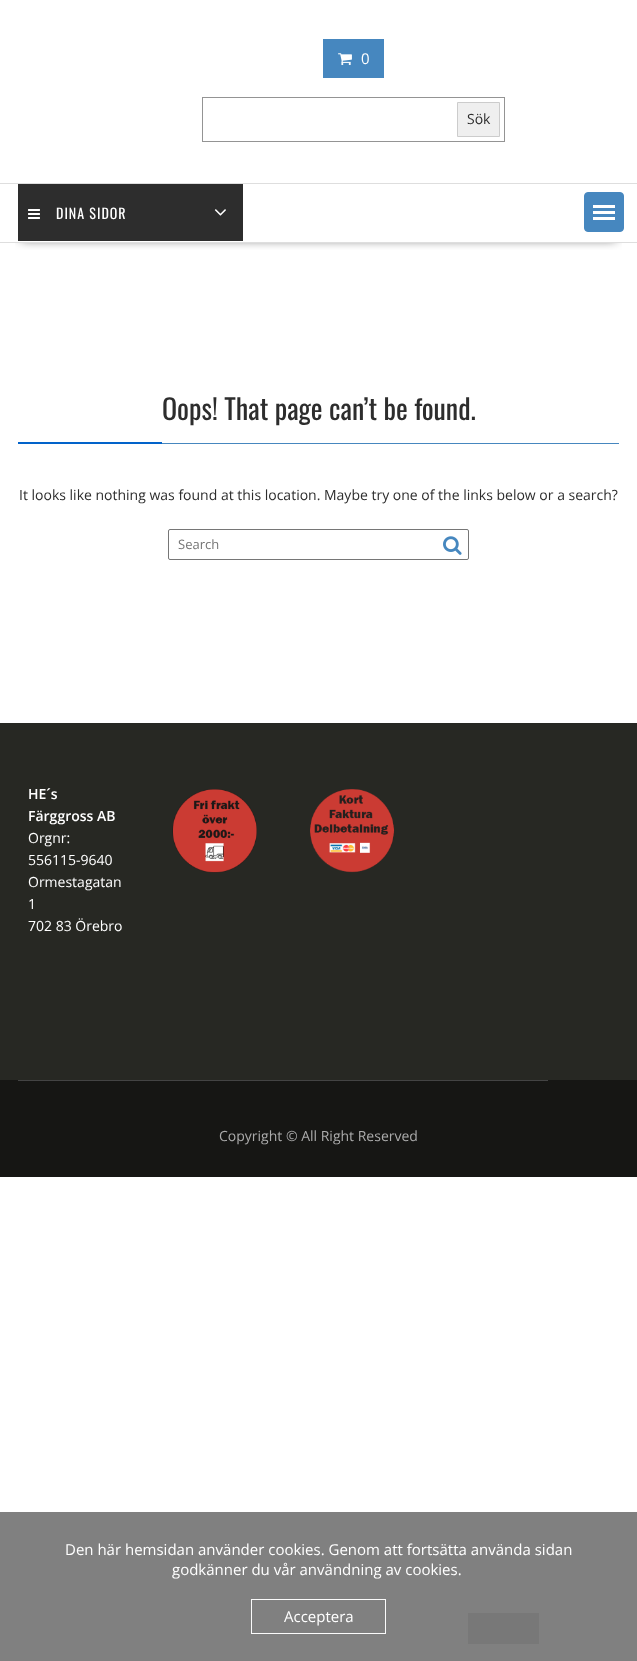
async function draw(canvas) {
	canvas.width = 637;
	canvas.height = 1661;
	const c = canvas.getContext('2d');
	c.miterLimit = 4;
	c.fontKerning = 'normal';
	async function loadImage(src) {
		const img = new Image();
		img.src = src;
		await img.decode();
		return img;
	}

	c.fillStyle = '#fff';
	c.fillRect(0, 0, 637, 1661);
	c.fillStyle = '#808080';
	c.fillRect(0, 1512, 637, 149);
	c.fillStyle = '#4687bf';
	c.fillRect(323, 39, 61, 39);
	c.drawImage(await loadImage('img1.png'), 338, 53, 14, 13);
	c.font = '15px Open Sans';
	c.fillStyle = '#fff';
	c.fillText('0', 361, 64);
	c.strokeStyle = '#949494';
	c.strokeRect(202.5, 97.5, 302, 44);
	c.fillStyle = '#efefef';
	c.beginPath();
	c.rect(457.5, 102.5, 42, 34);
	c.fill();
	c.strokeStyle = '#ccc';
	c.stroke();
	c.font = '14px Open Sans';
	c.fillStyle = '#2d2d2d';
	c.fillText('Sök', 467, 124);
	c.save();
	c.beginPath();
	c.rect(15, 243, 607, 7);
	c.clip();
	c.fillStyle = '#000000bf';
	c.filter = 'blur(5.5px)';
	c.beginPath();
	c.rect(21, 221, 595, 18);
	c.fill();
	c.filter = 'none';
	c.restore();
	for (const [x, y, w, h, color] of [
		[0, 183, 637, 1, '#dedede'],
		[0, 242, 637, 1, '#dedede'],
		[18, 184, 225, 57, '#2d2d2d'],
	]) {
		c.fillStyle = color;
		c.fillRect(x, y, w, h);
	}
	c.drawImage(await loadImage('img2.png'), 28, 209, 12, 10);
	c.letterSpacing = '1px';
	c.font = '14px Oswald';
	c.fillStyle = '#fff';
	c.fillText('DINA SIDOR', 56, 219);
	c.drawImage(await loadImage('img3.png'), 214, 209, 12, 7);
	c.fillStyle = '#4687bf';
	c.beginPath();
	c.roundRect(584.5, 192.5, 39, 39, 3.5);
	c.fill();
	c.strokeStyle = '#4687bf';
	c.stroke();
	for (const [x, y, w, h, color] of [
		[593, 217, 22, 3, '#fff'],
		[593, 211, 22, 3, '#fff'],
		[593, 205, 22, 3, '#fff'],
		[162, 443, 457, 1, '#4687bf'],
	]) {
		c.fillStyle = color;
		c.fillRect(x, y, w, h);
	}
	c.letterSpacing = '0px';
	c.font = '28px Oswald';
	c.fillStyle = '#2d2d2d';
	c.fillText('Oops! That page can’t be found.', 162, 420);
	c.fillStyle = '#0263ca';
	c.fillRect(18, 442, 144, 2);
	c.font = '14px Open Sans';
	c.fillStyle = '#2d2d2d';
	c.fillText('It looks like nothing was found at this location. Maybe try one of the links below or a search?', 19, 500);
	c.beginPath();
	c.roundRect(168.5, 529.5, 300, 30, 1.5);
	c.strokeStyle = '#767676';
	c.stroke();
	c.font = '13px Open Sans';
	c.fillStyle = '#757575';
	c.fillText('Search', 178, 549);
	c.drawImage(await loadImage('img4.png'), 443, 536, 19, 19);
	for (const [x, y, w, h, color] of [
		[0, 723, 637, 357, '#272823'],
		[0, 1080, 637, 97, '#161614'],
		[18, 1080, 530, 1, '#444'],
	]) {
		c.fillStyle = color;
		c.fillRect(x, y, w, h);
	}
	c.font = '600 14px Open Sans';
	c.fillStyle = '#fff';
	c.fillText('HE´s', 28, 799);
	c.fillText('Färggross AB', 28, 821);
	c.font = '14px Open Sans';
	for (const [text, x, y] of [
		['Orgnr:', 28, 843],
		['556115-9640', 28, 865],
		['Ormestagatan', 28, 887],
		['1', 28, 909],
		['702 83 Örebro', 28, 931],
	]) {
		c.fillText(text, x, y);
	}
	c.drawImage(await loadImage('img5.png'), 172, 789, 85, 84);
	c.drawImage(await loadImage('img6.png'), 310, 789, 85, 84);
	c.fillStyle = '#ababab';
	c.fillText('Copyright © All Right Reserved', 219, 1141);
	c.font = '15px Open Sans';
	c.fillStyle = '#fff';
	c.fillText('Den här hemsidan använder cookies. Genom att fortsätta använda sidan', 65, 1555);
	c.fillText('godkänner du vår användning av cookies.', 172, 1575);
	c.strokeStyle = '#fffffff7';
	c.strokeRect(251.5, 1599.5, 134, 34);
	c.fillText('Acceptera', 284, 1622);
	c.fillStyle = '#787878';
	c.fillRect(468, 1613, 71, 31);
}

draw(document.querySelector('canvas'));
